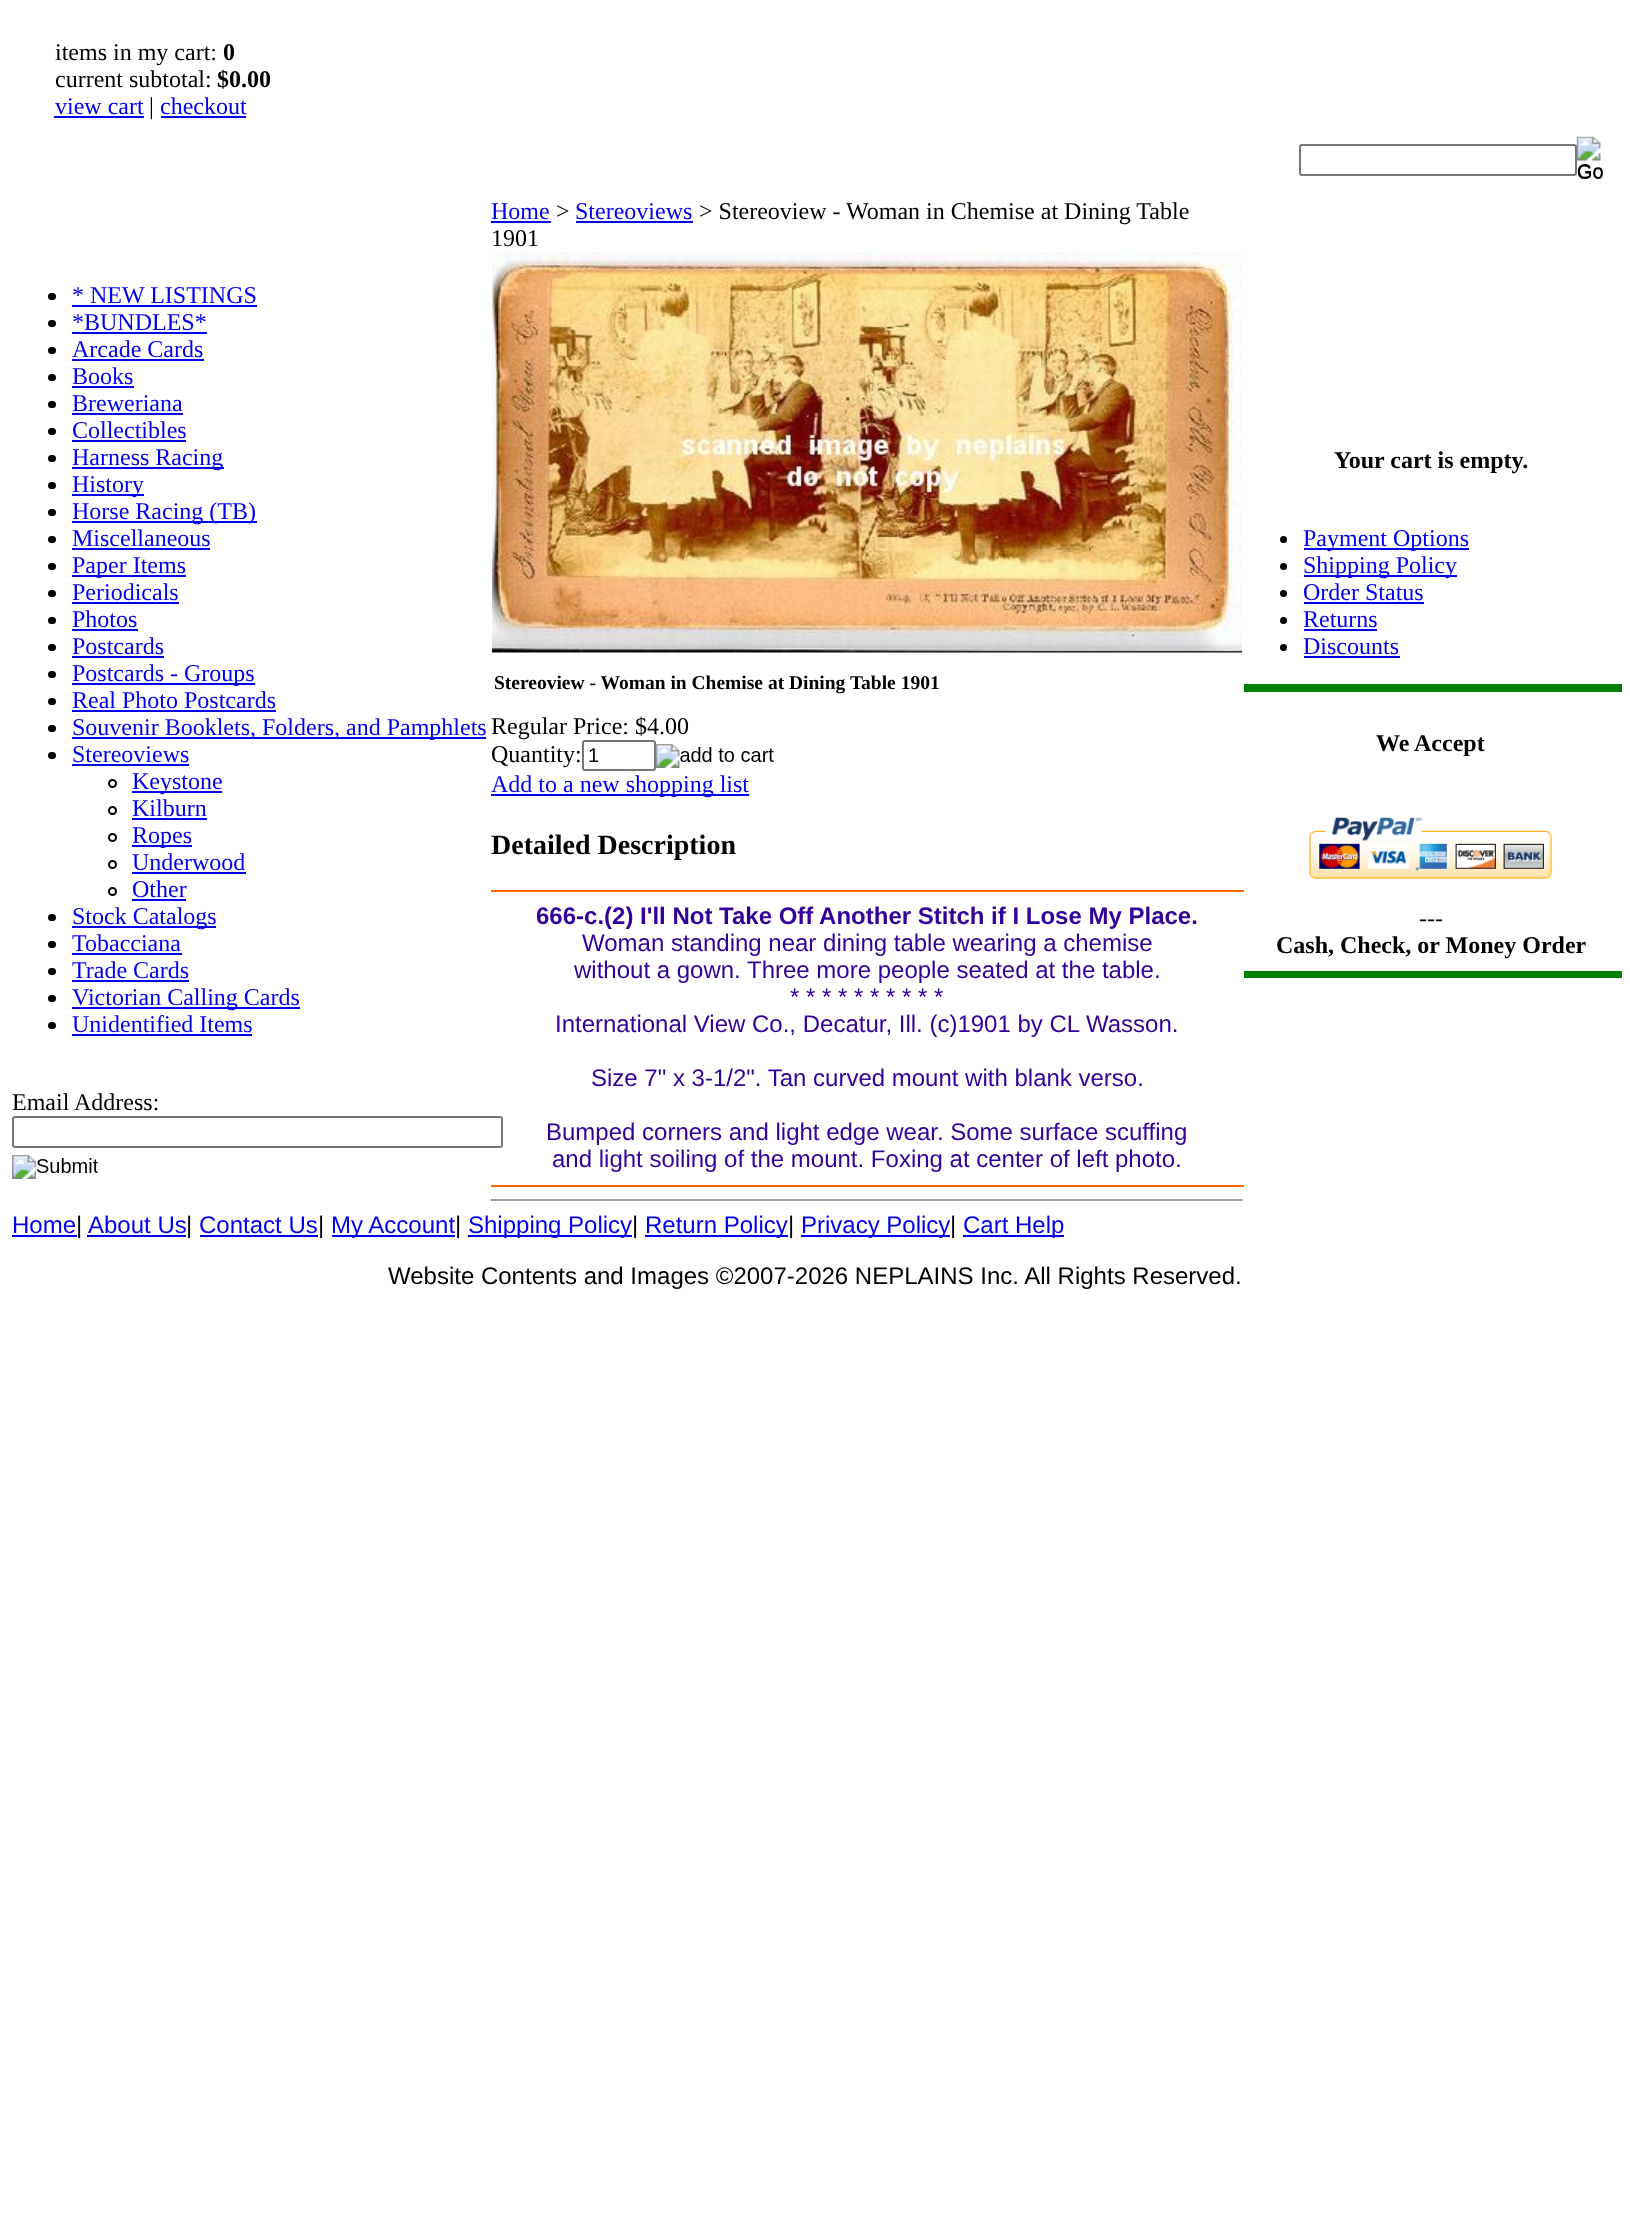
async function draw(canvas) {
	canvas.width = 1630;
	canvas.height = 2236;
	const c = canvas.getContext('2d');
	c.miterLimit = 4;
	c.fontKerning = 'normal';
	async function loadImage(src) {
		const img = new Image();
		img.src = src;
		await img.decode();
		return img;
	}

	c.fillStyle = '#fff';
	c.fillRect(0, 0, 1630, 2236);
	c.font = '24px Liberation Serif';
	c.fillStyle = '#000';
	c.fillText('items in my cart:', 55, 60);
	c.font = 'bold 24px Liberation Serif';
	c.fillText('0', 223, 60);
	c.font = '24px Liberation Serif';
	c.fillText('current subtotal:', 55, 87);
	c.font = 'bold 24px Liberation Serif';
	c.fillText('$0.00', 217, 87);
	c.font = '24px Liberation Serif';
	c.fillStyle = '#00e';
	c.fillText('view cart', 55, 114);
	c.fillRect(54, 116, 90, 2);
	c.fillStyle = '#000';
	c.fillText('|', 149, 114);
	c.fillStyle = '#00e';
	c.fillText('checkout', 160, 114);
	c.fillRect(161, 116, 85, 2);
	c.beginPath();
	c.roundRect(1300, 145, 276, 30, 2);
	c.strokeStyle = '#767676';
	c.lineWidth = 2;
	c.stroke();
	c.drawImage(await loadImage('img1.png'), 1576, 136, 27, 43);
	c.font = '20px Liberation Sans';
	c.fillStyle = '#000';
	c.fillText('Go', 1577, 178);
	c.beginPath();
	c.roundRect(48, 293, 8, 7, 3.5);
	c.fill();
	c.font = '24px Liberation Serif';
	c.fillStyle = '#00e';
	c.fillText('* NEW LISTINGS', 72, 303);
	c.fillRect(72, 305, 185, 2);
	c.fillStyle = '#000';
	c.beginPath();
	c.roundRect(48, 320, 8, 7, 3.5);
	c.fill();
	c.fillStyle = '#00e';
	c.fillText('*BUNDLES*', 72, 330);
	c.fillRect(72, 332, 135, 2);
	c.fillStyle = '#000';
	c.beginPath();
	c.roundRect(48, 347, 8, 7, 3.5);
	c.fill();
	c.fillStyle = '#00e';
	c.fillText('Arcade Cards', 72, 357);
	c.fillRect(72, 359, 132, 2);
	c.fillStyle = '#000';
	c.beginPath();
	c.roundRect(48, 374, 8, 7, 3.5);
	c.fill();
	c.fillStyle = '#00e';
	c.fillText('Books', 72, 384);
	c.fillRect(72, 386, 62, 2);
	c.fillStyle = '#000';
	c.beginPath();
	c.roundRect(48, 401, 8, 7, 3.5);
	c.fill();
	c.fillStyle = '#00e';
	c.fillText('Breweriana', 72, 411);
	c.fillRect(72, 413, 111, 2);
	c.fillStyle = '#000';
	c.beginPath();
	c.roundRect(48, 428, 8, 7, 3.5);
	c.fill();
	c.fillStyle = '#00e';
	c.fillText('Collectibles', 72, 438);
	c.fillRect(72, 440, 114, 2);
	c.fillStyle = '#000';
	c.beginPath();
	c.roundRect(48, 455, 8, 7, 3.5);
	c.fill();
	c.fillStyle = '#00e';
	c.fillRect(72, 467, 152, 2);
	c.fillText('Harness Racing', 72, 465);
	c.fillStyle = '#000';
	c.beginPath();
	c.roundRect(48, 482, 8, 7, 3.5);
	c.fill();
	c.fillStyle = '#00e';
	c.fillRect(72, 494, 72, 2);
	c.fillText('History', 72, 492);
	c.fillStyle = '#000';
	c.beginPath();
	c.roundRect(48, 509, 8, 7, 3.5);
	c.fill();
	c.fillStyle = '#00e';
	c.fillRect(72, 521, 185, 2);
	c.fillText('Horse Racing (TB)', 72, 519);
	c.fillStyle = '#000';
	c.beginPath();
	c.roundRect(48, 536, 8, 7, 3.5);
	c.fill();
	c.fillStyle = '#00e';
	c.fillText('Miscellaneous', 72, 546);
	c.fillRect(72, 548, 138, 2);
	c.fillStyle = '#000';
	c.beginPath();
	c.roundRect(48, 563, 8, 7, 3.5);
	c.fill();
	c.fillStyle = '#00e';
	c.fillRect(72, 575, 114, 2);
	c.fillText('Paper Items', 72, 573);
	c.fillStyle = '#000';
	c.beginPath();
	c.roundRect(48, 590, 8, 7, 3.5);
	c.fill();
	c.fillStyle = '#00e';
	c.fillText('Periodicals', 72, 600);
	c.fillRect(72, 602, 107, 2);
	c.fillStyle = '#000';
	c.beginPath();
	c.roundRect(48, 617, 8, 7, 3.5);
	c.fill();
	c.fillStyle = '#00e';
	c.fillText('Photos', 72, 627);
	c.fillRect(72, 629, 66, 2);
	c.fillStyle = '#000';
	c.beginPath();
	c.roundRect(48, 644, 8, 7, 3.5);
	c.fill();
	c.fillStyle = '#00e';
	c.fillText('Postcards', 72, 654);
	c.fillRect(72, 656, 92, 2);
	c.fillStyle = '#000';
	c.beginPath();
	c.roundRect(48, 671, 8, 7, 3.5);
	c.fill();
	c.fillStyle = '#00e';
	c.fillRect(72, 683, 183, 2);
	c.fillText('Postcards - Groups', 72, 681);
	c.fillStyle = '#000';
	c.beginPath();
	c.roundRect(48, 698, 8, 7, 3.5);
	c.fill();
	c.fillStyle = '#00e';
	c.fillText('Real Photo Postcards', 72, 708);
	c.fillRect(72, 710, 204, 2);
	c.fillStyle = '#000';
	c.beginPath();
	c.roundRect(48, 725, 8, 7, 3.5);
	c.fill();
	c.fillStyle = '#00e';
	c.fillRect(72, 737, 414, 2);
	c.fillText('Souvenir Booklets, Folders, and Pamphlets', 72, 735);
	c.fillStyle = '#000';
	c.beginPath();
	c.roundRect(48, 752, 8, 7, 3.5);
	c.fill();
	c.fillStyle = '#00e';
	c.fillText('Stereoviews', 72, 762);
	c.fillRect(72, 764, 117, 2);
	c.beginPath();
	c.arc(112.5, 783.5, 3.5, 0, 2 * Math.PI);
	c.strokeStyle = '#000';
	c.stroke();
	c.fillRect(132, 791, 90, 2);
	c.fillText('Keystone', 132, 789);
	c.beginPath();
	c.arc(112.5, 810.5, 3.5, 0, 2 * Math.PI);
	c.stroke();
	c.fillText('Kilburn', 132, 816);
	c.fillRect(132, 818, 75, 2);
	c.beginPath();
	c.arc(112.5, 837.5, 3.5, 0, 2 * Math.PI);
	c.stroke();
	c.fillRect(132, 845, 60, 2);
	c.fillText('Ropes', 132, 843);
	c.beginPath();
	c.arc(112.5, 864.5, 3.5, 0, 2 * Math.PI);
	c.stroke();
	c.fillText('Underwood', 132, 870);
	c.fillRect(132, 872, 114, 2);
	c.beginPath();
	c.arc(112.5, 891.5, 3.5, 0, 2 * Math.PI);
	c.stroke();
	c.fillText('Other', 132, 897);
	c.fillRect(132, 899, 54, 2);
	c.fillStyle = '#000';
	c.beginPath();
	c.roundRect(48, 914, 8, 7, 3.5);
	c.fill();
	c.fillStyle = '#00e';
	c.fillRect(72, 926, 144, 2);
	c.fillText('Stock Catalogs', 72, 924);
	c.fillStyle = '#000';
	c.beginPath();
	c.roundRect(48, 941, 8, 7, 3.5);
	c.fill();
	c.fillStyle = '#00e';
	c.fillText('Tobacciana', 72, 951);
	c.fillRect(72, 953, 110, 2);
	c.fillStyle = '#000';
	c.beginPath();
	c.roundRect(48, 968, 8, 7, 3.5);
	c.fill();
	c.fillStyle = '#00e';
	c.fillText('Trade Cards', 72, 978);
	c.fillRect(72, 980, 117, 2);
	c.fillStyle = '#000';
	c.beginPath();
	c.roundRect(48, 995, 8, 7, 3.5);
	c.fill();
	c.fillStyle = '#00e';
	c.fillRect(72, 1007, 228, 2);
	c.fillText('Victorian Calling Cards', 72, 1005);
	c.fillStyle = '#000';
	c.beginPath();
	c.roundRect(48, 1022, 8, 7, 3.5);
	c.fill();
	c.fillStyle = '#00e';
	c.fillText('Unidentified Items', 72, 1032);
	c.fillRect(72, 1034, 180, 2);
	c.fillStyle = '#000';
	c.fillText('Email Address:', 12, 1110);
	c.beginPath();
	c.roundRect(13, 1117, 489, 30, 2);
	c.strokeStyle = '#767676';
	c.stroke();
	c.drawImage(await loadImage('img2.png'), 12, 1155, 86, 24);
	c.fillStyle = '#00e';
	c.fillText('Home', 491, 219);
	c.fillRect(491, 221, 60, 2);
	c.fillStyle = '#000';
	c.fillText('>', 556, 219);
	c.fillStyle = '#00e';
	c.fillText('Stereoviews', 575, 219);
	c.fillRect(576, 221, 117, 2);
	c.fillStyle = '#000';
	c.fillText('> Stereoview - Woman in Chemise at Dining Table', 699, 219);
	c.fillText('1901', 491, 246);
	c.drawImage(await loadImage('img3.png'), 492, 252, 750, 401);
	c.font = 'bold 19.5px Liberation Serif';
	c.fillText('Stereoview - Woman in Chemise at Dining Table 1901', 494, 689);
	c.font = '24px Liberation Serif';
	c.fillText('Regular Price: $4.00', 491, 734);
	c.fillText('Quantity:', 491, 762);
	c.beginPath();
	c.roundRect(583, 741, 72, 29, 2);
	c.stroke();
	c.font = '20px Liberation Sans';
	c.fillText('1', 588, 762);
	c.drawImage(await loadImage('img4.png'), 655, 744, 119, 24);
	c.fillStyle = '#00e';
	c.fillRect(491, 794, 258, 2);
	c.font = '24px Liberation Serif';
	c.fillText('Add to a new shopping list', 491, 792);
	c.font = 'bold 28px Liberation Serif';
	c.fillStyle = '#000';
	c.fillText('Detailed Description', 491, 854);
	c.fillStyle = '#f60';
	c.fillRect(491, 890, 753, 2);
	c.font = 'bold 24px Liberation Sans';
	c.fillStyle = '#309';
	c.fillText('666-c.(2) I\'ll Not Take Off Another Stitch if I Lose My Place.', 536, 924);
	c.font = '24px Liberation Sans';
	for (const [text, x, y] of [
		['Woman standing near dining table wearing a chemise', 582, 951],
		['without a gown. Three more people seated at the table.', 574, 978],
		['* * * * * * * * * *', 790, 1005],
		['International View Co., Decatur, Ill. (c)1901 by CL Wasson.', 555, 1032],
		['Size 7" x 3-1/2". Tan curved mount with blank verso.', 591, 1086],
		['Bumped corners and light edge wear. Some surface scuffing', 546, 1140],
		['and light soiling of the mount. Foxing at center of left photo.', 552, 1167],
	]) {
		c.fillText(text, x, y);
	}
	for (const [x, y, w, h, color] of [
		[491, 1185, 753, 2, '#f60'],
		[491, 1199, 753, 2, '#9f9f9f'],
		[1242, 1199, 2, 2, '#eee'],
	]) {
		c.fillStyle = color;
		c.fillRect(x, y, w, h);
	}
	c.font = 'bold 24px Liberation Serif';
	c.fillStyle = '#000';
	c.fillText('Your cart is empty.', 1334, 468);
	c.beginPath();
	c.arc(1283.5, 539.5, 3.5, 0, 2 * Math.PI);
	c.fill();
	c.fillStyle = '#00e';
	c.fillRect(1304, 548, 165, 2);
	c.font = '24px Liberation Serif';
	c.fillText('Payment Options', 1303, 546);
	c.fillStyle = '#000';
	c.beginPath();
	c.arc(1283.5, 566.5, 3.5, 0, 2 * Math.PI);
	c.fill();
	c.fillStyle = '#00e';
	c.fillRect(1304, 575, 153, 2);
	c.fillText('Shipping Policy', 1303, 573);
	c.fillStyle = '#000';
	c.beginPath();
	c.arc(1283.5, 593.5, 3.5, 0, 2 * Math.PI);
	c.fill();
	c.fillStyle = '#00e';
	c.fillText('Order Status', 1303, 600);
	c.fillRect(1304, 602, 120, 2);
	c.fillStyle = '#000';
	c.beginPath();
	c.arc(1283.5, 620.5, 3.5, 0, 2 * Math.PI);
	c.fill();
	c.fillStyle = '#00e';
	c.fillText('Returns', 1303, 627);
	c.fillRect(1304, 629, 73, 2);
	c.fillStyle = '#000';
	c.beginPath();
	c.arc(1283.5, 647.5, 3.5, 0, 2 * Math.PI);
	c.fill();
	c.fillStyle = '#00e';
	c.fillText('Discounts', 1303, 654);
	c.fillRect(1304, 656, 96, 2);
	c.fillStyle = '#008000';
	c.fillRect(1244, 684, 378, 8);
	c.font = 'bold 24px Liberation Serif';
	c.fillStyle = '#000';
	c.fillText('We Accept', 1376, 751);
	c.drawImage(await loadImage('img5.png'), 1309, 817, 243, 62);
	c.font = '24px Liberation Serif';
	c.fillText('---', 1419, 926);
	c.font = 'bold 24px Liberation Serif';
	c.fillText('Cash, Check, or Money Order', 1276, 953);
	c.fillStyle = '#008000';
	c.fillRect(1244, 971, 378, 7);
	c.font = '24px Liberation Sans';
	c.fillStyle = '#00e';
	c.fillText('Home', 12, 1233);
	c.fillRect(12, 1235, 65, 2);
	c.fillStyle = '#000';
	c.fillText('|', 76, 1233);
	c.fillStyle = '#00e';
	c.fillText('About Us', 88, 1233);
	c.fillRect(87, 1235, 99, 2);
	c.fillStyle = '#000';
	c.fillText('|', 186, 1233);
	c.fillStyle = '#00e';
	c.fillText('Contact Us', 199, 1233);
	c.fillRect(200, 1235, 118, 2);
	c.fillStyle = '#000';
	c.fillText('|', 318, 1233);
	c.fillStyle = '#00e';
	c.fillRect(332, 1235, 123, 2);
	c.fillText('My Account', 331, 1233);
	c.fillStyle = '#000';
	c.fillText('|', 455, 1233);
	c.fillStyle = '#00e';
	c.fillRect(468, 1235, 164, 2);
	c.fillText('Shipping Policy', 468, 1233);
	c.fillStyle = '#000';
	c.fillText('|', 632, 1233);
	c.fillStyle = '#00e';
	c.fillRect(645, 1235, 143, 2);
	c.fillText('Return Policy', 645, 1233);
	c.fillStyle = '#000';
	c.fillText('|', 788, 1233);
	c.fillStyle = '#00e';
	c.fillRect(801, 1235, 149, 2);
	c.fillText('Privacy Policy', 801, 1233);
	c.fillStyle = '#000';
	c.fillText('|', 950, 1233);
	c.fillStyle = '#00e';
	c.fillRect(963, 1235, 101, 2);
	c.fillText('Cart Help', 963, 1233);
	c.fillStyle = '#000';
	c.fillText('Website Contents and Images ©2007-2026 NEPLAINS Inc. All Rights Reserved.', 388, 1284);
}

draw(document.querySelector('canvas'));
